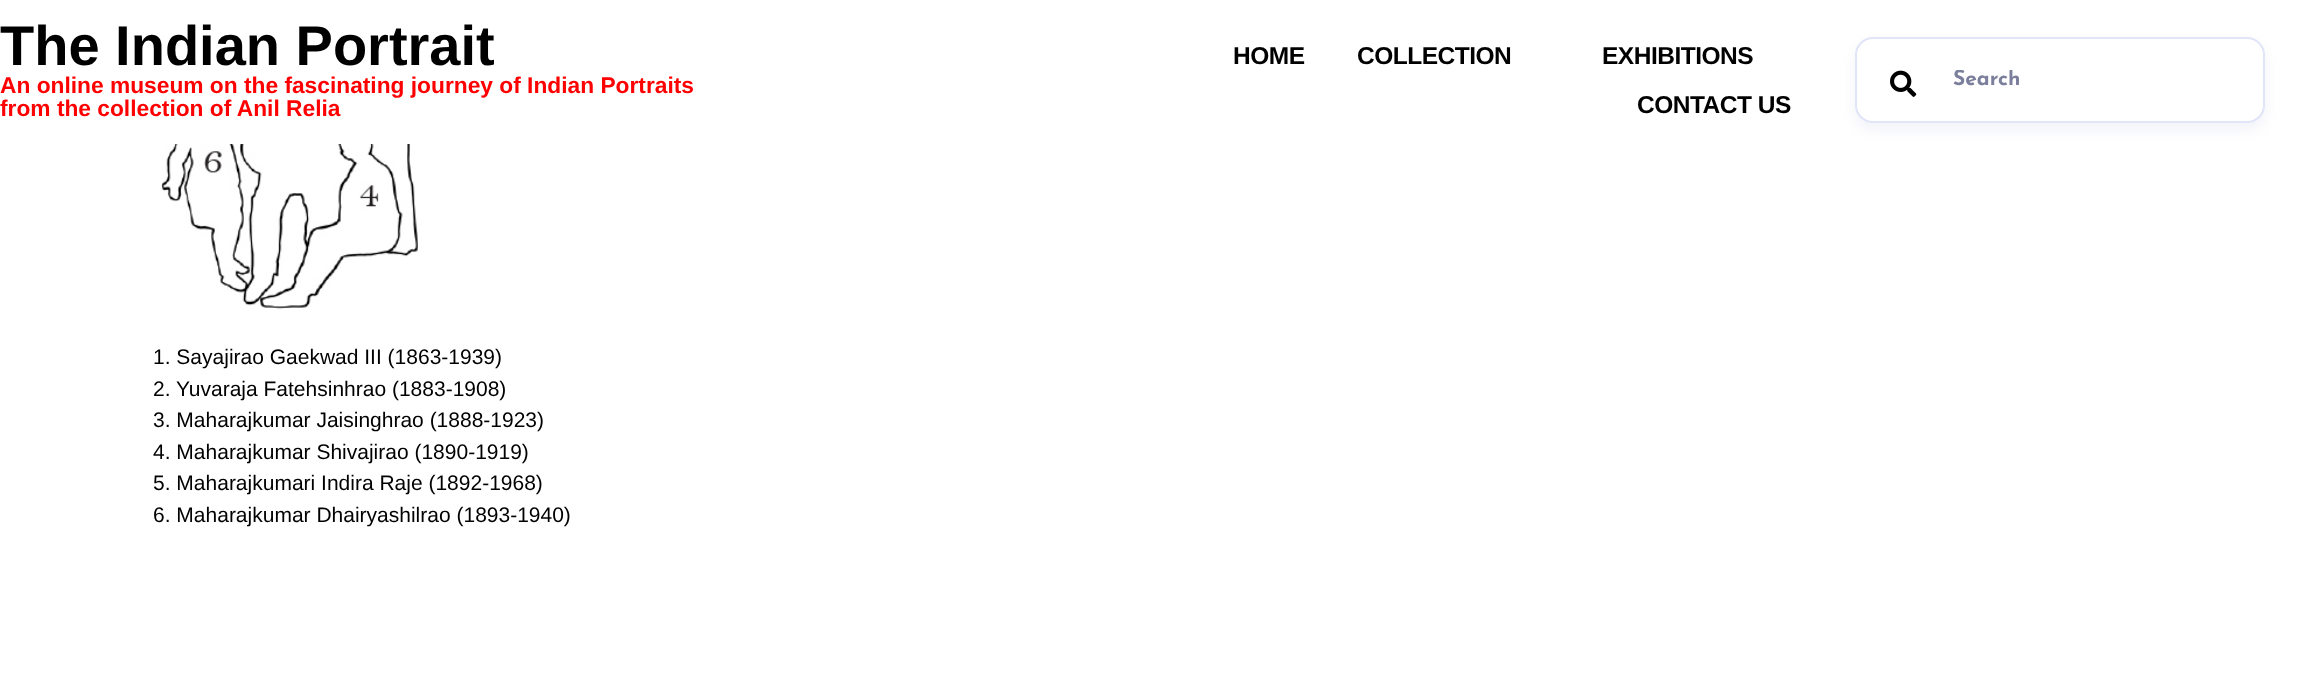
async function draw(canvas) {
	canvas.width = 2300;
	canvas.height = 673;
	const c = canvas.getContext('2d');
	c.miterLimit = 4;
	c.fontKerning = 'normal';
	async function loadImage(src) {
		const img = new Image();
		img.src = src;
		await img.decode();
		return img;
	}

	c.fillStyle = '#fff';
	c.fillRect(0, 0, 2300, 673);
	c.font = 'bold 56px Liberation Sans';
	c.fillStyle = '#000';
	c.fillText('The Indian Portrait', 0, 65);
	c.font = 'bold 22.75px Liberation Sans';
	c.fillStyle = '#f00';
	c.fillText('An online museum on the fascinating journey of Indian Portraits', 0, 93);
	c.fillText('from the collection of Anil Relia', 0, 116);
	c.letterSpacing = '-0.5px';
	c.font = 'bold 24.5px Liberation Sans';
	c.fillStyle = '#000';
	for (const [text, x, y] of [
		['HOME', 1233, 64],
		['COLLECTION', 1357, 64],
		['EXHIBITIONS', 1602, 64],
		['CONTACT US', 1637, 113],
	]) {
		c.fillText(text, x, y);
	}
	c.fillStyle = '#a5aed526';
	c.filter = 'blur(7px)';
	c.beginPath();
	c.roundRect(1855, 44, 410, 86, 18);
	c.fill();
	c.filter = 'none';
	c.fillStyle = '#fff';
	c.beginPath();
	c.roundRect(1856, 38, 408, 84, 17);
	c.fill();
	c.strokeStyle = '#e0e5f8';
	c.lineWidth = 2;
	c.stroke();
	c.drawImage(await loadImage('img1.png'), 1890, 70, 27, 27);
	c.save();
	c.beginPath();
	c.rect(1953, 70, 275, 21);
	c.clip();
	c.letterSpacing = '0px';
	c.font = 'bold 21px Josefin Sans';
	c.fillStyle = '#7b7f9c';
	c.fillText('Search', 1953, 85);
	c.restore();
	c.drawImage(await loadImage('img2.png'), 161, 144, 257, 165);
	c.letterSpacing = '0px';
	c.font = '21px Liberation Sans';
	c.fillStyle = '#000';
	for (const [text, x, y] of [
		['1. Sayajirao Gaekwad III (1863-1939)', 153, 364],
		['2. Yuvaraja Fatehsinhrao (1883-1908)', 153, 396],
		['3. Maharajkumar Jaisinghrao (1888-1923)', 153, 427],
		['4. Maharajkumar Shivajirao (1890-1919)', 153, 459],
		['5. Maharajkumari Indira Raje (1892-1968)', 153, 490],
		['6. Maharajkumar Dhairyashilrao (1893-1940)', 153, 522],
	]) {
		c.fillText(text, x, y);
	}
}

draw(document.querySelector('canvas'));
